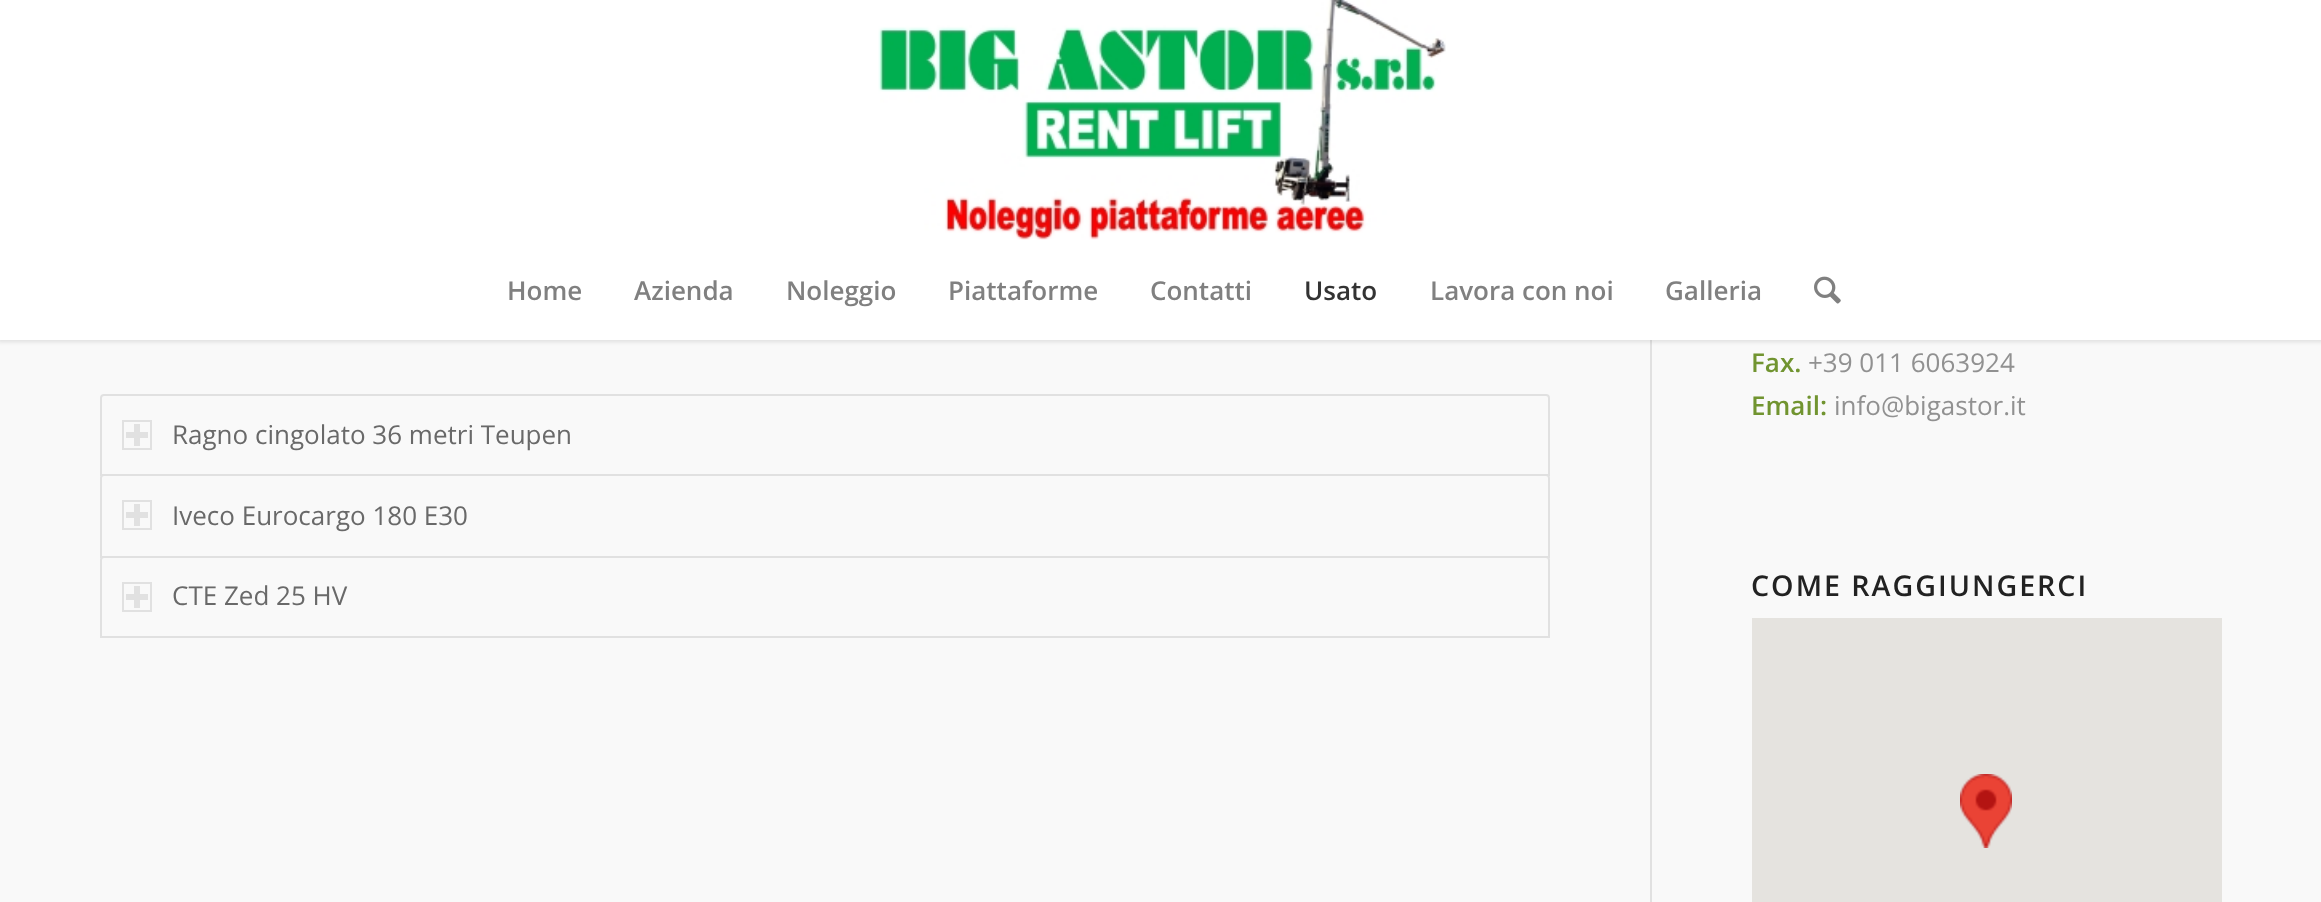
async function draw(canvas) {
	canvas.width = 2321;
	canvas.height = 902;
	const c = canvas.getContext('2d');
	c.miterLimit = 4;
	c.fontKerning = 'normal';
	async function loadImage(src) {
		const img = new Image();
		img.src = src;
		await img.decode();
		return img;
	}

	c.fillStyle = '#f9f9f9';
	c.fillRect(0, 0, 2321, 902);
	c.fillStyle = '#e1e1e1';
	c.fillRect(1650, 340, 2, 562);
	c.fillStyle = '#0000001a';
	c.filter = 'blur(2px)';
	c.beginPath();
	c.rect(-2, -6, 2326, 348);
	c.fill();
	c.filter = 'none';
	c.fillStyle = '#fff';
	c.fillRect(0, 0, 2321, 340);
	c.drawImage(await loadImage('img1.png'), 878, 0, 568, 240);
	c.font = '600 26px Open Sans';
	c.fillStyle = '#808080';
	for (const [text, x, y] of [
		['Home', 507, 300],
		['Azienda', 634, 300],
		['Noleggio', 786, 300],
		['Piattaforme', 948, 300],
		['Contatti', 1150, 300],
	]) {
		c.fillText(text, x, y);
	}
	c.fillStyle = '#333';
	c.fillText('Usato', 1304, 300);
	c.fillStyle = '#808080';
	c.fillText('Lavora con noi', 1430, 300);
	c.fillText('Galleria', 1665, 300);
	c.drawImage(await loadImage('img2.png'), 1814, 276, 27, 28);
	c.beginPath();
	c.roundRect(101, 395, 1448, 80, [3, 3, 0, 0]);
	c.strokeStyle = '#e1e1e1';
	c.lineWidth = 2;
	c.stroke();
	c.strokeRect(123, 421, 28, 28);
	c.fillStyle = '#e1e1e1';
	c.fillRect(134, 424, 6, 22);
	c.fillRect(126, 432, 22, 6);
	c.font = '26px Open Sans';
	c.fillStyle = '#696969';
	c.fillText('Ragno cingolato 36 metri Teupen', 172, 444);
	c.fillStyle = '#f9f9f9';
	c.beginPath();
	c.roundRect(101, 475, 1448, 82, [3, 3, 0, 0]);
	c.fill();
	c.stroke();
	c.strokeRect(123, 501, 28, 28);
	c.fillStyle = '#e1e1e1';
	c.fillRect(134, 504, 6, 22);
	c.fillRect(126, 512, 22, 6);
	c.fillStyle = '#696969';
	c.fillText('Iveco Eurocargo 180 E30', 172, 525);
	c.fillStyle = '#f9f9f9';
	c.beginPath();
	c.roundRect(101, 557, 1448, 80, [3, 3, 0, 0]);
	c.fill();
	c.stroke();
	c.strokeRect(123, 583, 28, 28);
	c.fillStyle = '#e1e1e1';
	c.fillRect(134, 586, 6, 22);
	c.fillRect(126, 594, 22, 6);
	c.fillStyle = '#696969';
	c.fillText('CTE Zed 25 HV', 172, 605);
	c.font = '600 26px Open Sans';
	c.fillStyle = '#719430';
	c.fillText('Fax.', 1751, 372);
	c.font = '26px Open Sans';
	c.fillStyle = '#919191';
	c.fillText('+39 011 6063924', 1808, 372);
	c.font = '600 26px Open Sans';
	c.fillStyle = '#719430';
	c.fillText('Email:', 1751, 415);
	c.font = '26px Open Sans';
	c.fillStyle = '#919191';
	c.fillText('info@bigastor.it', 1834, 415);
	c.letterSpacing = '2px';
	c.font = '600 28.6px Open Sans';
	c.fillStyle = '#222';
	c.fillText('COME RAGGIUNGERCI', 1751, 596);
	c.fillStyle = '#e5e3df';
	c.fillRect(1752, 618, 470, 284);
	c.drawImage(await loadImage('img3.png'), 1960, 774, 52, 74);
}

draw(document.querySelector('canvas'));
